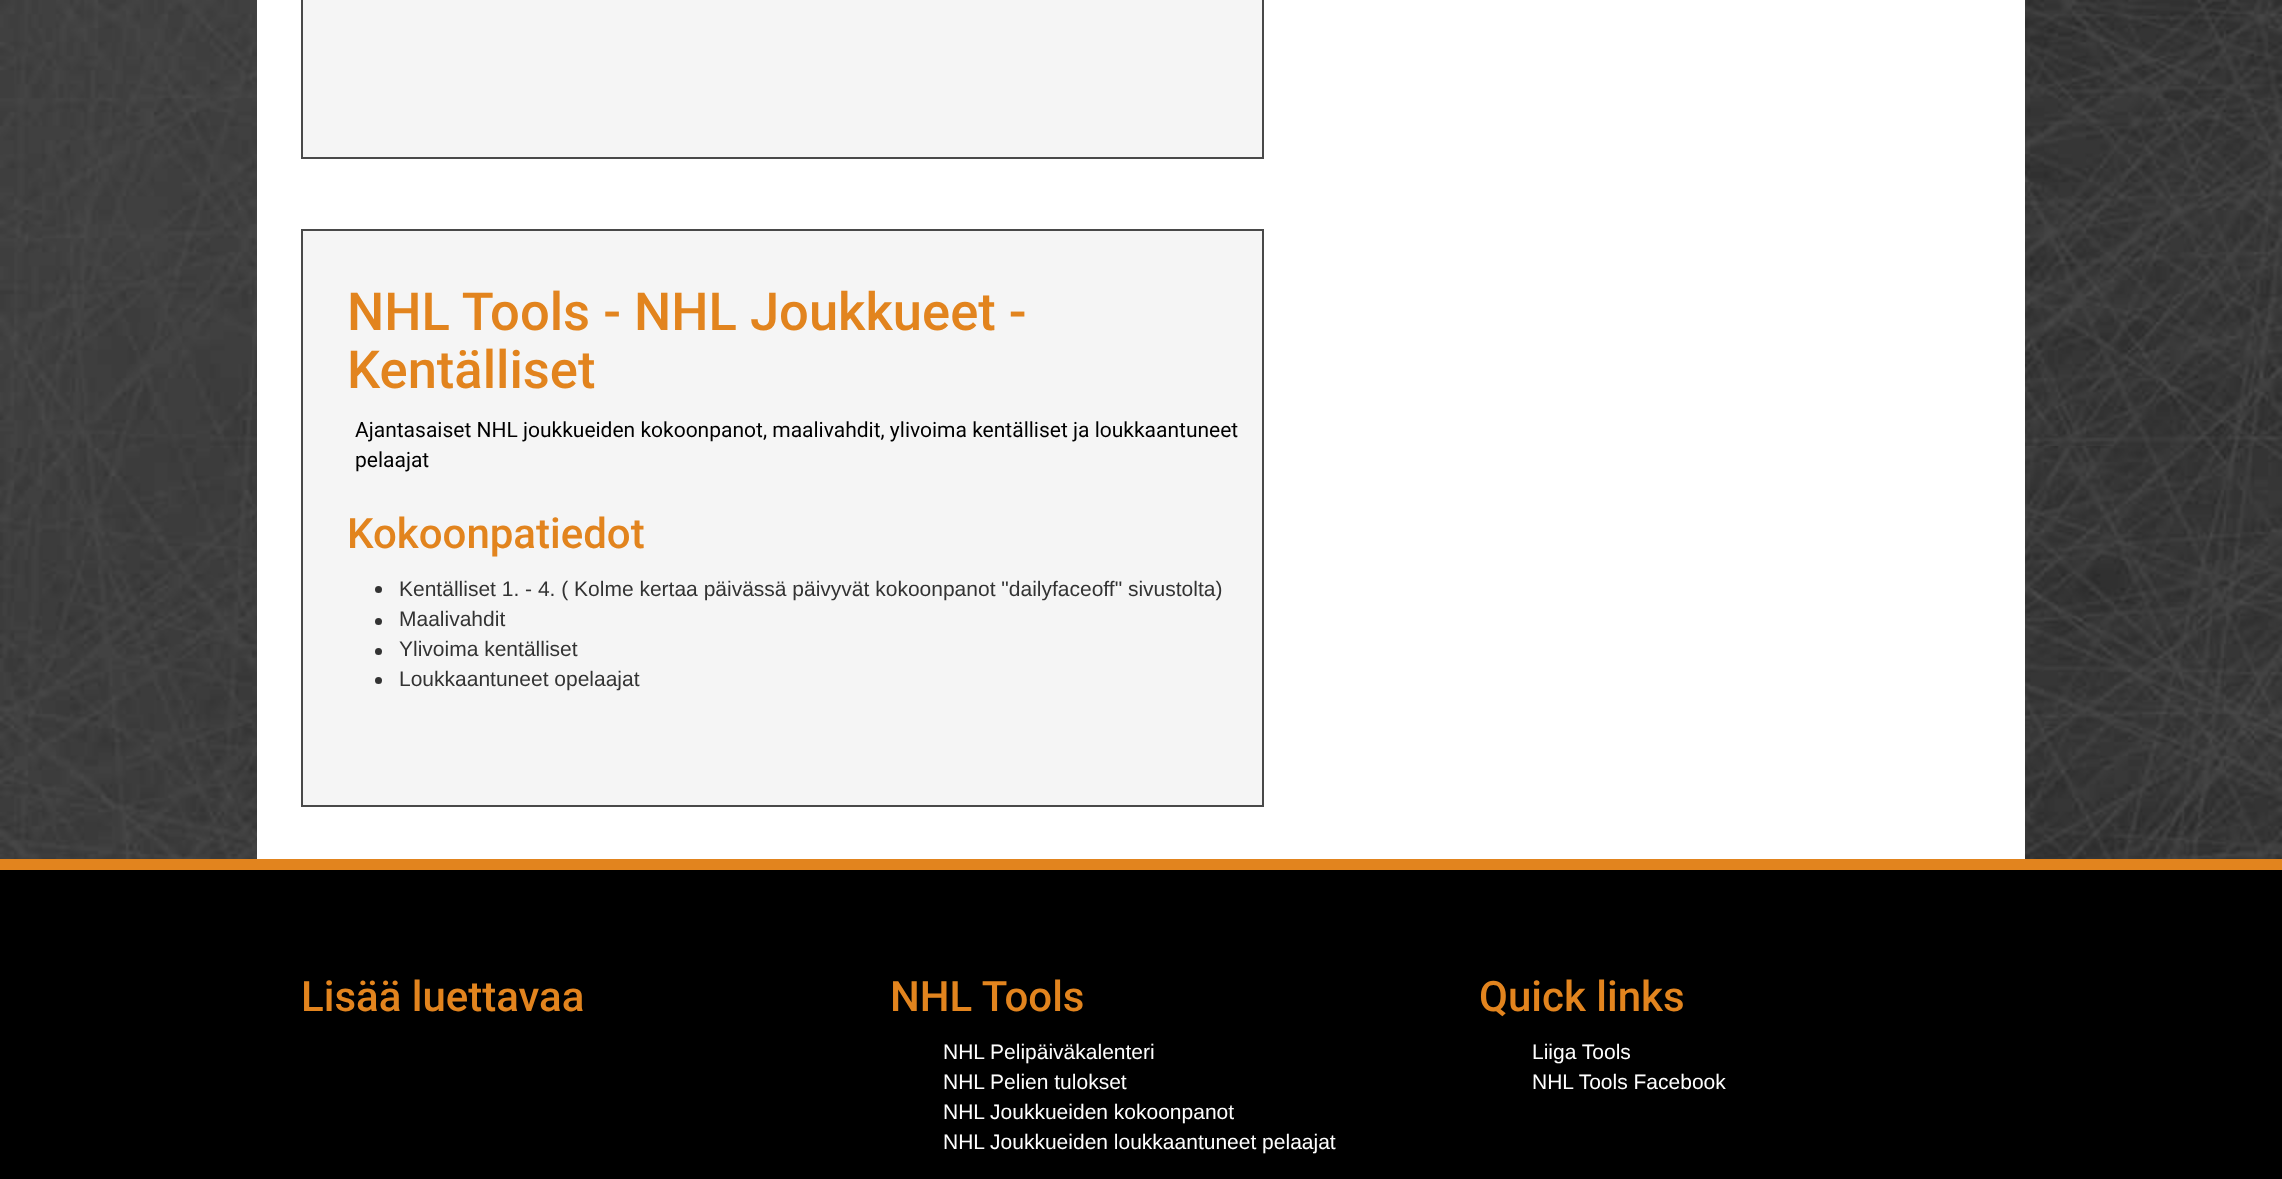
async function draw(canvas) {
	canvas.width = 2282;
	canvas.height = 1179;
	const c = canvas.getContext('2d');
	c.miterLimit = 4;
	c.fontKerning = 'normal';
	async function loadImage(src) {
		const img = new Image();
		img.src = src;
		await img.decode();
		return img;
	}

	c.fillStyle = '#fff';
	c.fillRect(0, 0, 2282, 1179);
	c.drawImage(await loadImage('img1.png'), 0, 0, 2282, 859);
	c.fillRect(257, 0, 1768, 859);
	c.fillStyle = '#f5f5f5';
	c.beginPath();
	c.rect(302, -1, 961, 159);
	c.fill();
	c.strokeStyle = '#494949';
	c.lineWidth = 2;
	c.stroke();
	c.beginPath();
	c.rect(302, 230, 961, 576);
	c.fill();
	c.stroke();
	c.font = '500 52.5px Roboto';
	c.fillStyle = '#e2841e';
	c.fillText('NHL Tools - NHL Joukkueet -', 347, 330);
	c.fillText('Kentälliset', 347, 388);
	c.font = '21px Roboto';
	c.fillStyle = '#000';
	c.fillText('Ajantasaiset NHL joukkueiden kokoonpanot, maalivahdit, ylivoima kentälliset ja loukkaantuneet', 355, 437);
	c.fillText('pelaajat', 355, 467);
	c.font = '500 42px Roboto';
	c.fillStyle = '#e2841e';
	c.fillText('Kokoonpatiedot', 347, 548);
	c.fillStyle = '#333';
	c.beginPath();
	c.arc(378.5, 589.5, 3.5, 0, 2 * Math.PI);
	c.fill();
	c.font = '21px Liberation Sans';
	c.fillText('Kentälliset 1. - 4. ( Kolme kertaa päivässä päivyvät kokoonpanot "dailyfaceoff" sivustolta)', 399, 596);
	c.beginPath();
	c.arc(378.5, 621.5, 3.5, 0, 2 * Math.PI);
	c.fill();
	c.fillText('Maalivahdit', 399, 626);
	c.beginPath();
	c.arc(378.5, 651.5, 3.5, 0, 2 * Math.PI);
	c.fill();
	c.fillText('Ylivoima kentälliset', 399, 656);
	c.beginPath();
	c.arc(378.5, 680.5, 3.5, 0, 2 * Math.PI);
	c.fill();
	c.fillText('Loukkaantuneet opelaajat', 399, 686);
	c.fillStyle = '#000';
	c.fillRect(0, 870, 2282, 309);
	c.fillStyle = '#e2841e';
	c.fillRect(0, 859, 2282, 11);
	c.font = '500 42px Roboto';
	c.fillText('Lisää luettavaa', 301, 1011);
	c.fillText('NHL Tools', 890, 1011);
	c.font = '21px Liberation Sans';
	c.fillStyle = '#fefefe';
	for (const [text, x, y] of [
		['NHL Pelipäiväkalenteri', 943, 1059],
		['NHL Pelien tulokset', 943, 1089],
		['NHL Joukkueiden kokoonpanot', 943, 1119],
		['NHL Joukkueiden loukkaantuneet pelaajat', 943, 1149],
	]) {
		c.fillText(text, x, y);
	}
	c.font = '500 42px Roboto';
	c.fillStyle = '#e2841e';
	c.fillText('Quick links', 1479, 1011);
	c.font = '21px Liberation Sans';
	c.fillStyle = '#fefefe';
	c.fillText('Liiga Tools', 1532, 1059);
	c.fillText('NHL Tools Facebook', 1532, 1089);
}

draw(document.querySelector('canvas'));
